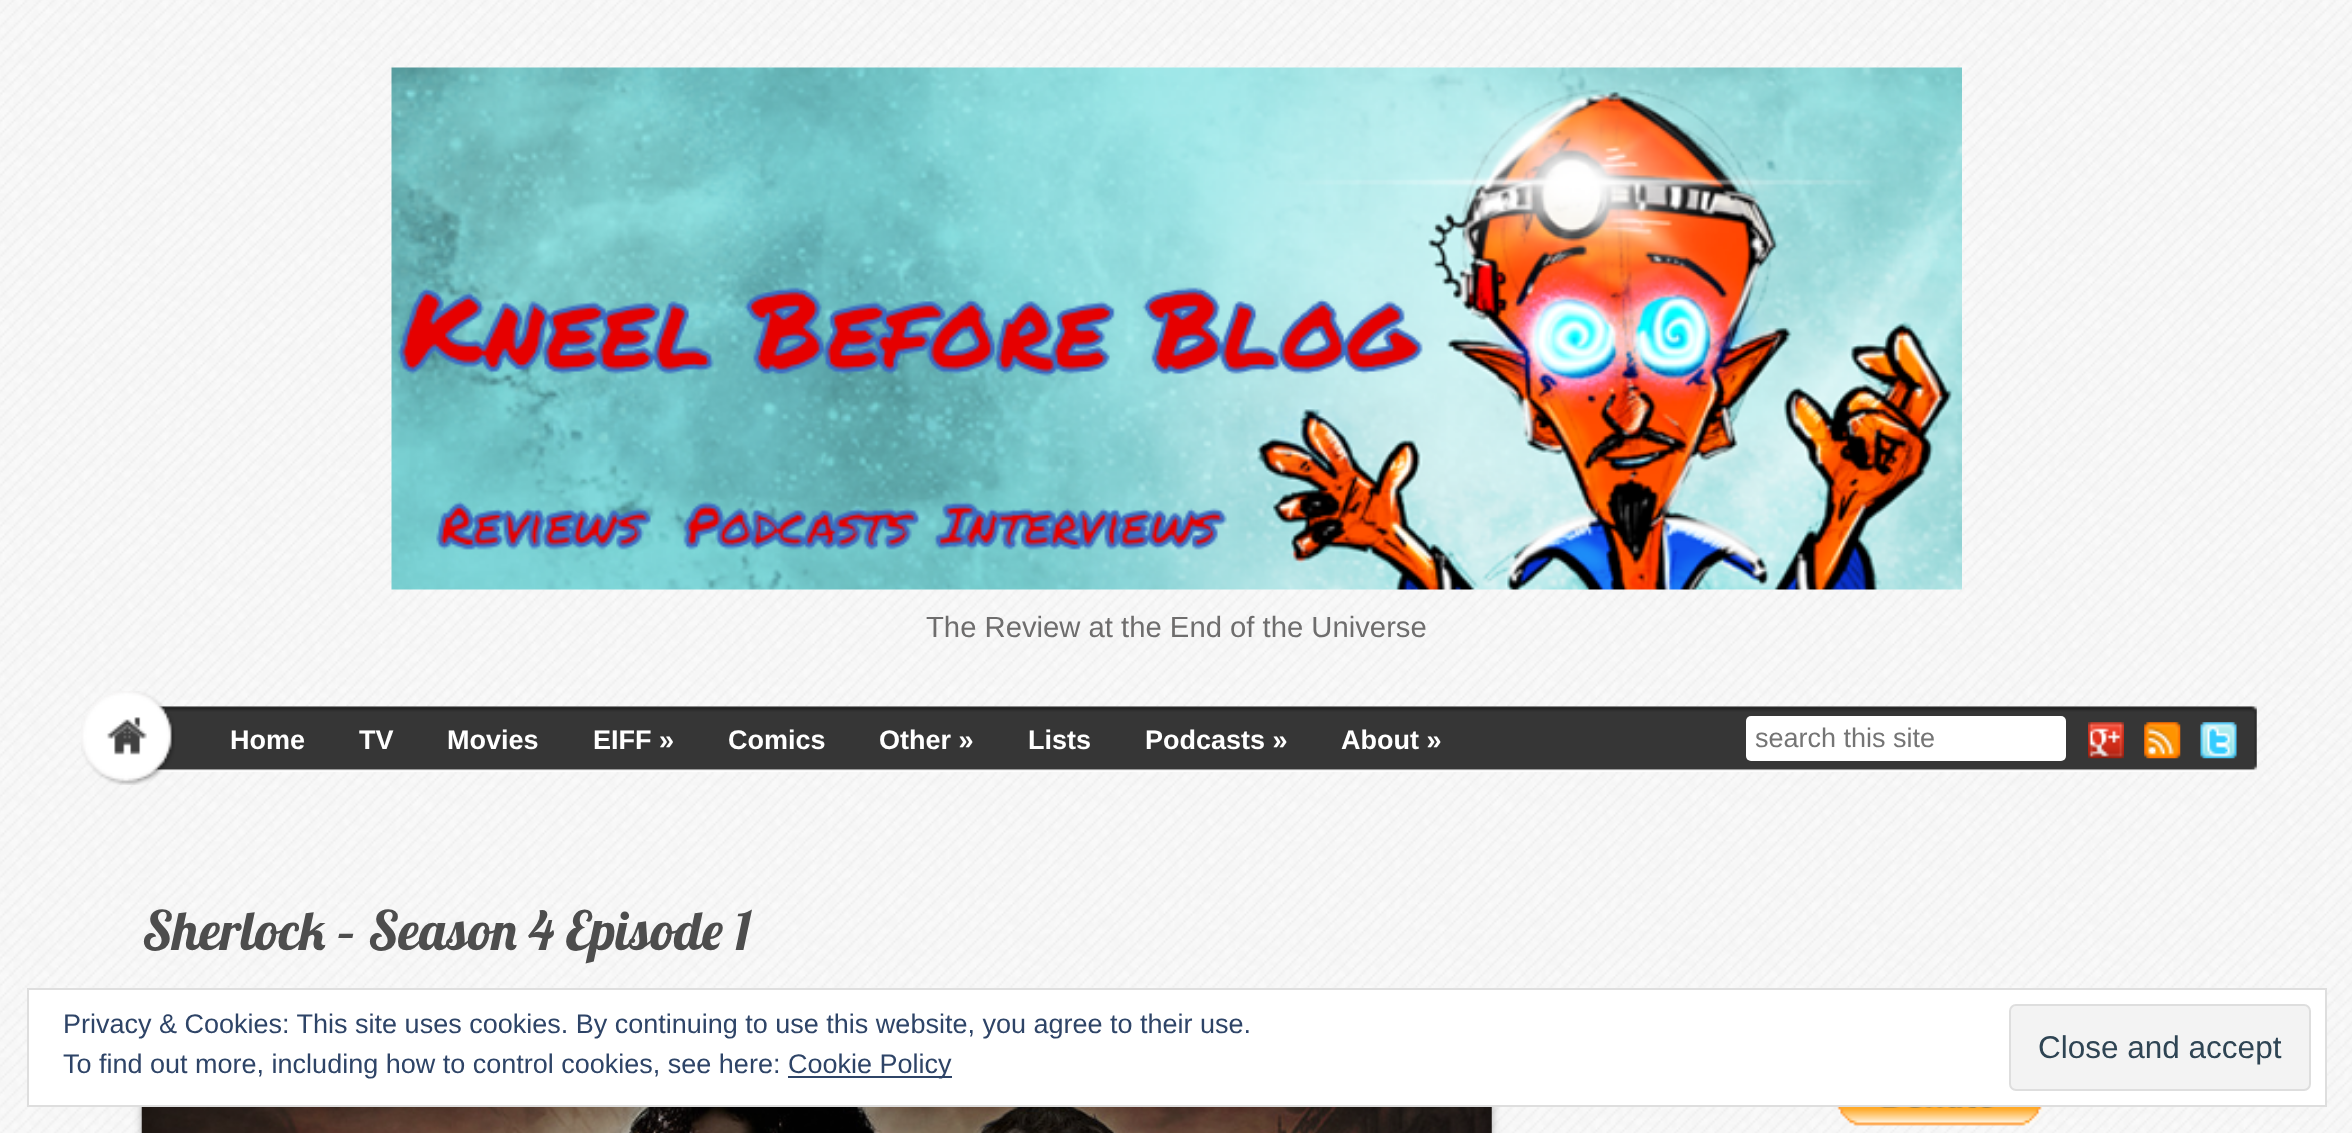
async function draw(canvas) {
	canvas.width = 2352;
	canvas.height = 1133;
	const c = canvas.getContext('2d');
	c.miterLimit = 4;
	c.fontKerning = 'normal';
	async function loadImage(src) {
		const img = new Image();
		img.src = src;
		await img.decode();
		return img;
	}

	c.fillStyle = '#fff';
	c.fillRect(0, 0, 2352, 1133);
	c.drawImage(await loadImage('img1.png'), 0, 0, 2352, 1133);
	c.drawImage(await loadImage('img2.png'), 391, 67, 1571, 523);
	c.font = '29.25px Liberation Sans';
	c.fillStyle = '#6e6d6d';
	c.fillText('The Review at the End of the Universe', 926, 637);
	c.drawImage(await loadImage('img3.png'), 150, 706, 2107, 66);
	c.drawImage(await loadImage('img4.png'), 81, 691, 94, 94);
	c.font = 'bold 27px Liberation Sans';
	c.fillStyle = '#fff';
	for (const [text, x, y] of [
		['Home', 230, 749],
		['TV', 359, 749],
		['Movies', 447, 749],
		['EIFF »', 593, 749],
		['Comics', 728, 749],
		['Other »', 879, 749],
		['Lists', 1028, 749],
		['Podcasts »', 1145, 749],
		['About »', 1341, 749],
	]) {
		c.fillText(text, x, y);
	}
	c.beginPath();
	c.roundRect(1746, 716, 320, 45, 5);
	c.fill();
	c.font = '27px Liberation Sans';
	c.fillStyle = '#757575';
	c.fillText('search this site', 1755, 747);
	c.drawImage(await loadImage('img5.png'), 2088, 722, 36, 37);
	c.drawImage(await loadImage('img6.png'), 2144, 722, 37, 37);
	c.drawImage(await loadImage('img7.png'), 2200, 722, 37, 37);
	c.font = '54px Lobster';
	c.fillStyle = '#4d4d4d';
	c.fillText('Sherlock – Season 4 Episode 1', 142, 950);
	c.fillStyle = '#0000004d';
	c.filter = 'blur(4.5px)';
	c.beginPath();
	c.rect(142, 1069, 1350, 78);
	c.fill();
	c.filter = 'none';
	c.drawImage(await loadImage('img8.png'), 141, 1107, 1351, 26);
	c.drawImage(await loadImage('img9.png'), 1837, 1107, 207, 19);
	c.fillStyle = '#fff';
	c.beginPath();
	c.rect(28, 989, 2298, 117);
	c.fill();
	c.strokeStyle = '#dedede';
	c.lineWidth = 2;
	c.stroke();
	c.font = '27px Liberation Sans';
	c.fillStyle = '#2e4467';
	c.fillText('Privacy & Cookies: This site uses cookies. By continuing to use this website, you agree to their use.', 63, 1033);
	c.fillText('To find out more, including how to control cookies, see here:', 63, 1073);
	c.fillRect(788, 1076, 164, 2);
	c.fillText('Cookie Policy', 788, 1073);
	c.fillStyle = '#f3f3f3';
	c.beginPath();
	c.roundRect(2010, 1005, 300, 85, 6);
	c.fill();
	c.stroke();
	c.font = '31.5px Liberation Sans';
	c.fillStyle = '#2e4453';
	c.fillText('Close and accept', 2038, 1058);
}

draw(document.querySelector('canvas'));
